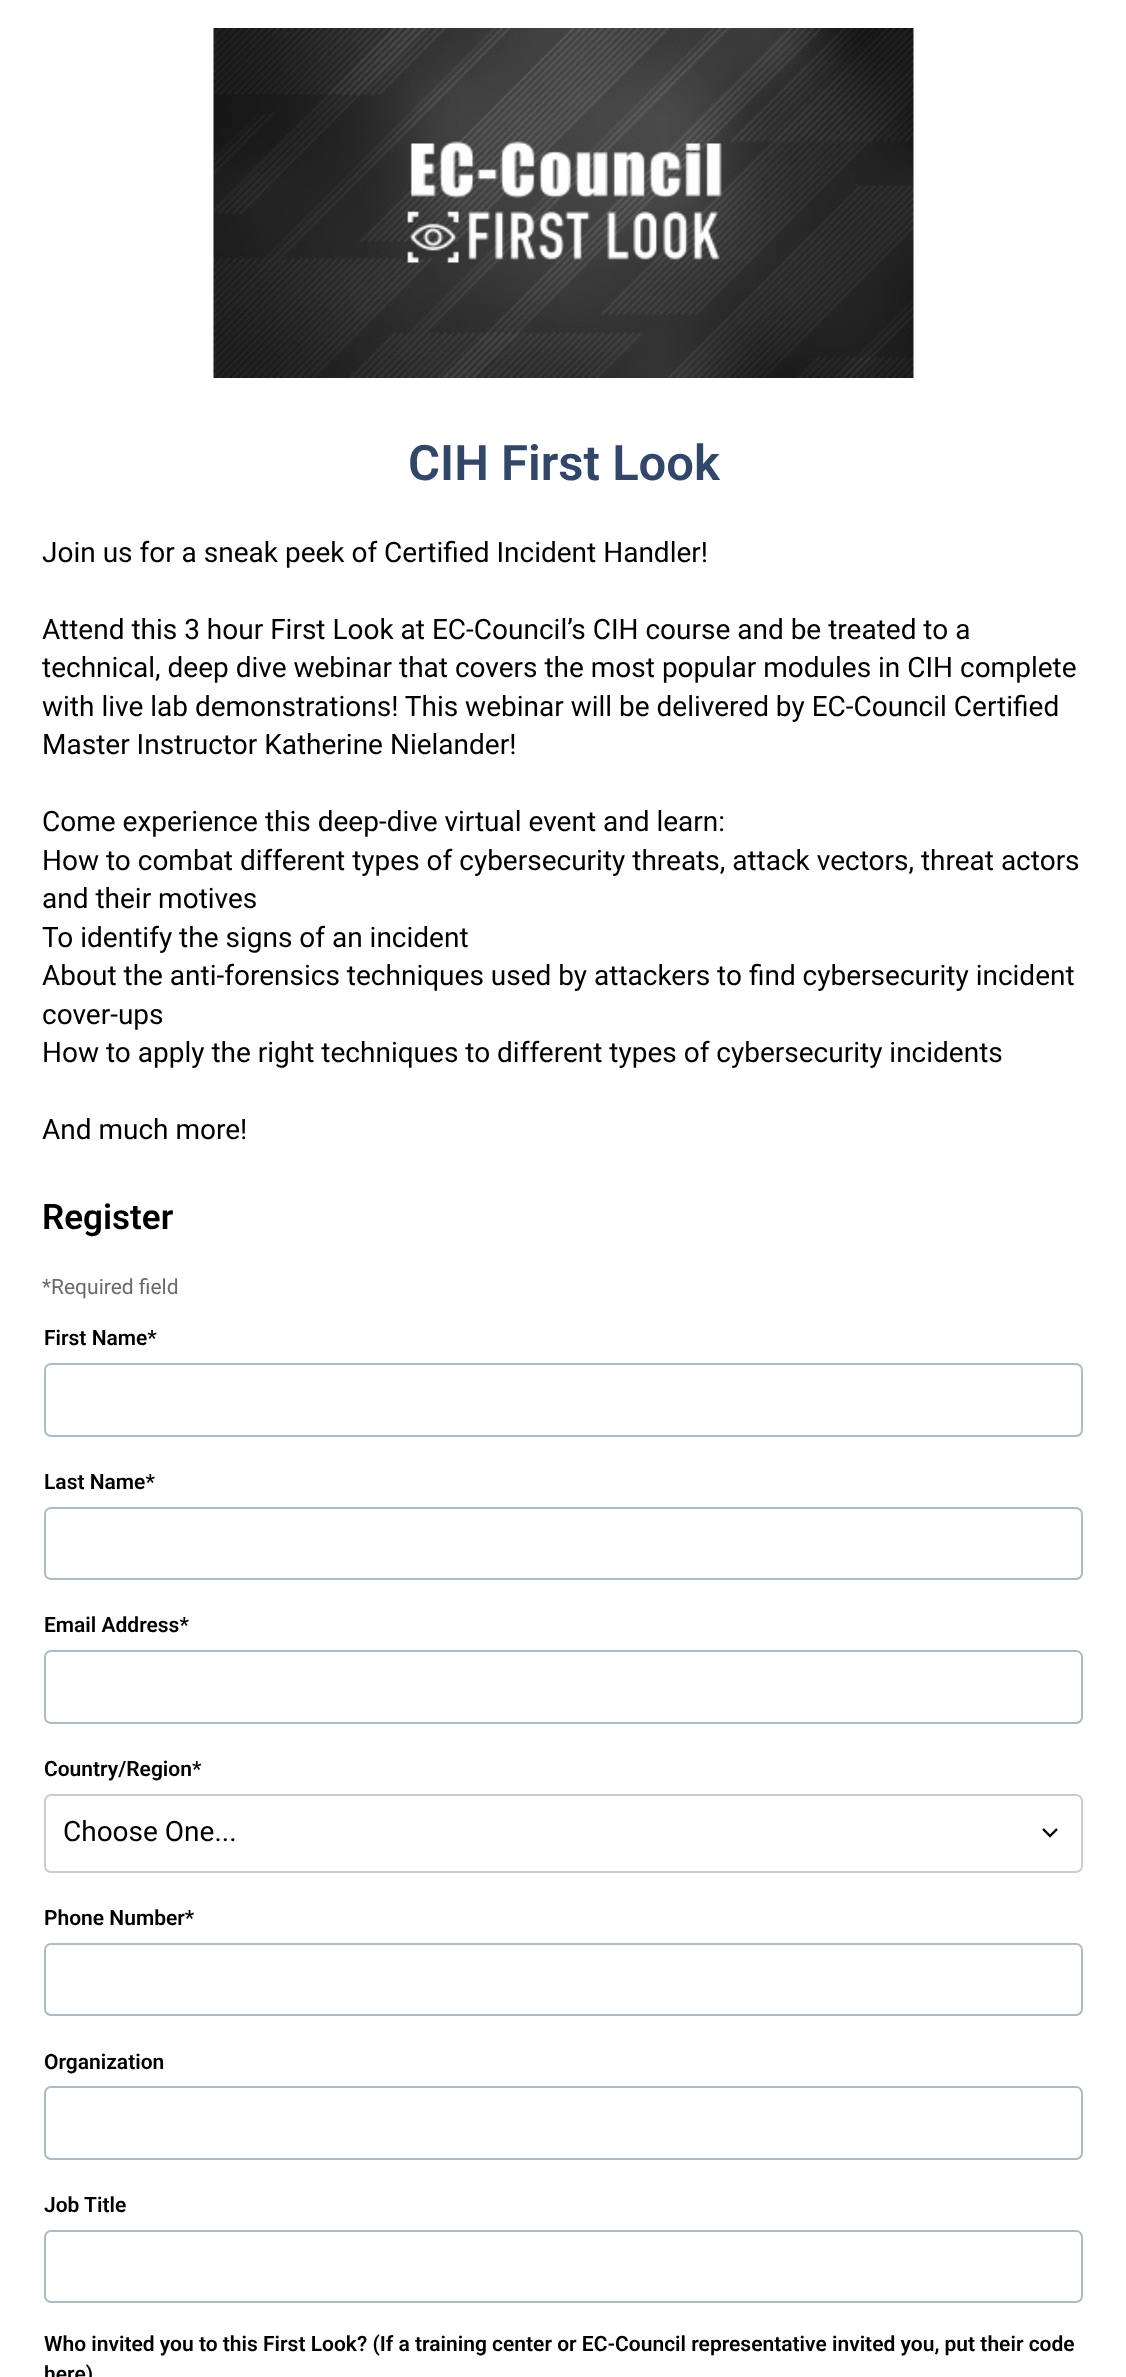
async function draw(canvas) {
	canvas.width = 1126;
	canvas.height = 2377;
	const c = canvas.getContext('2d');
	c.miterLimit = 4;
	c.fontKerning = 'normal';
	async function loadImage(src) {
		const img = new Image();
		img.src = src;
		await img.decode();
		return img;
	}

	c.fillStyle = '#fff';
	c.fillRect(0, 0, 1126, 2377);
	c.drawImage(await loadImage('img1.png'), 213, 28, 701, 350);
	c.font = '600 49px Roboto';
	c.fillStyle = '#314668';
	c.fillText('CIH First Look', 408, 480);
	c.font = '28px Roboto';
	c.fillStyle = '#000';
	for (const [text, x, y] of [
		['Join us for a sneak peek of Certified Incident Handler!', 42, 562],
		['Attend this 3 hour First Look at EC-Council’s CIH course and be treated to a', 42, 639],
		['technical, deep dive webinar that covers the most popular modules in CIH complete', 42, 677],
		['with live lab demonstrations! This webinar will be delivered by EC-Council Certified', 42, 716],
		['Master Instructor Katherine Nielander!', 42, 754],
		['Come experience this deep-dive virtual event and learn:', 42, 831],
		['How to combat different types of cybersecurity threats, attack vectors, threat actors', 42, 870],
		['and their motives', 42, 908],
		['To identify the signs of an incident', 42, 947],
		['About the anti-forensics techniques used by attackers to find cybersecurity incident', 42, 985],
		['cover-ups', 42, 1024],
		['How to apply the right techniques to different types of cybersecurity incidents', 42, 1062],
		['And much more!', 42, 1139],
	]) {
		c.fillText(text, x, y);
	}
	c.font = '600 35px Roboto';
	c.fillText('Register', 42, 1229);
	c.font = '21px Roboto';
	c.fillStyle = '#6b6969';
	c.fillText('*Required field', 42, 1294);
	c.font = '600 21px Roboto';
	c.fillStyle = '#000';
	c.fillText('First Name*', 44, 1345);
	c.beginPath();
	c.roundRect(45, 1364, 1037, 72, 6);
	c.strokeStyle = '#acbcc7';
	c.lineWidth = 2;
	c.stroke();
	c.fillText('Last Name*', 44, 1489);
	c.beginPath();
	c.roundRect(45, 1508, 1037, 71, 6);
	c.stroke();
	c.fillText('Email Address*', 44, 1632);
	c.beginPath();
	c.roundRect(45, 1651, 1037, 72, 6);
	c.stroke();
	c.fillText('Country/Region*', 44, 1776);
	c.beginPath();
	c.roundRect(45, 1795, 1037, 77, 6);
	c.strokeStyle = '#ccc';
	c.stroke();
	c.font = '28px Roboto';
	c.fillText('Choose One...', 63, 1841);
	c.drawImage(await loadImage('img2.png'), 1042, 1828, 16, 10);
	c.font = '600 21px Roboto';
	c.fillText('Phone Number*', 44, 1925);
	c.beginPath();
	c.roundRect(45, 1944, 1037, 71, 6);
	c.strokeStyle = '#acbcc7';
	c.stroke();
	c.fillText('Organization', 44, 2069);
	c.beginPath();
	c.roundRect(45, 2087, 1037, 72, 6);
	c.stroke();
	c.fillText('Job Title', 44, 2212);
	c.beginPath();
	c.roundRect(45, 2231, 1037, 71, 6);
	c.stroke();
	c.fillText('Who invited you to this First Look? (If a training center or EC-Council representative invited you, put their code', 44, 2351);
	c.fillText('here)', 44, 2381);
}

draw(document.querySelector('canvas'));
